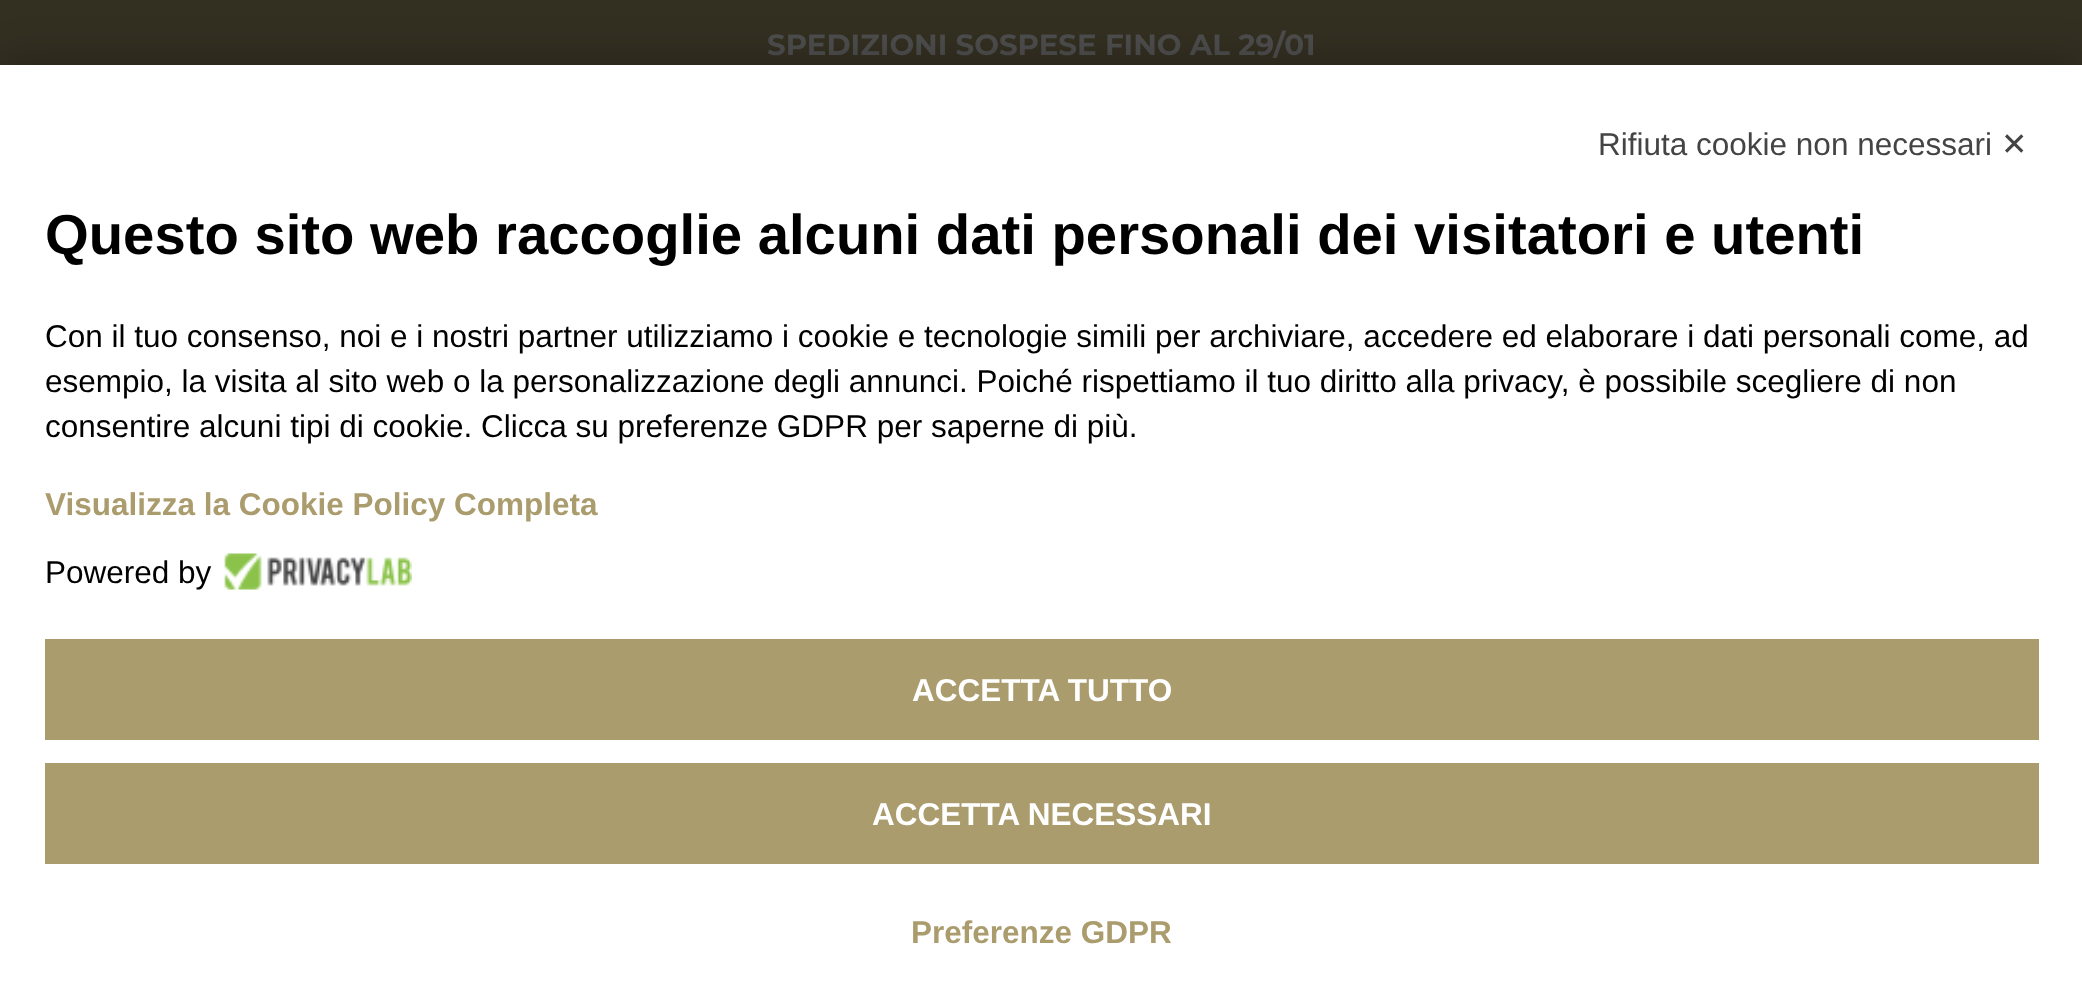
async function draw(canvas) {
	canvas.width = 2082;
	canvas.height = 997;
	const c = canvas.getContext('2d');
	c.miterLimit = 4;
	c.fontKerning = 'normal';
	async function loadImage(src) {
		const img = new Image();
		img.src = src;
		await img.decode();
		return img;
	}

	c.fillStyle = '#332f21';
	c.fillRect(0, 0, 2082, 997);
	c.font = 'bold 29.25px Montserrat';
	c.fillStyle = '#4d4d4d';
	c.fillText('SPEDIZIONI SOSPESE FINO AL 29/01', 767, 55);
	c.fillStyle = '#00000045';
	c.filter = 'blur(22.5px)';
	c.beginPath();
	c.rect(0, 65, 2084, 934);
	c.fill();
	c.filter = 'none';
	c.fillStyle = '#fff';
	c.fillRect(0, 65, 2082, 932);
	c.font = '31.5px Liberation Sans';
	c.fillStyle = '#444';
	c.fillText('Rifiuta cookie non necessari', 1598, 155);
	c.font = '31.5px DejaVu Sans';
	c.fillText('✕', 2001, 155);
	c.font = 'bold 56.25px Liberation Sans';
	c.fillStyle = '#000';
	c.fillText('Questo sito web raccoglie alcuni dati personali dei visitatori e utenti', 45, 254);
	c.font = '31.5px Liberation Sans';
	for (const [text, x, y] of [
		['Con il tuo consenso, noi e i nostri partner utilizziamo i cookie e tecnologie simili per archiviare, accedere ed elaborare i dati personali come, ad', 45, 347],
		['esempio, la visita al sito web o la personalizzazione degli annunci. Poiché rispettiamo il tuo diritto alla privacy, è possibile scegliere di non', 45, 392],
		['consentire alcuni tipi di cookie. Clicca su preferenze GDPR per saperne di più.', 45, 437],
	]) {
		c.fillText(text, x, y);
	}
	c.font = 'bold 31.5px Liberation Sans';
	c.fillStyle = '#ab9c6e';
	c.fillText('Visualizza la Cookie Policy Completa', 45, 515);
	c.font = '31.5px Liberation Sans';
	c.fillStyle = '#000';
	c.fillText('Powered by', 45, 583);
	c.drawImage(await loadImage('img1.png'), 224, 553, 188, 37);
	c.fillStyle = '#ab9c6e';
	c.fillRect(45, 639, 1994, 101);
	c.font = 'bold 31.5px Liberation Sans';
	c.fillStyle = '#fff';
	c.fillText('ACCETTA TUTTO', 912, 701);
	c.fillStyle = '#ab9c6e';
	c.fillRect(45, 763, 1994, 101);
	c.fillStyle = '#fff';
	c.fillText('ACCETTA NECESSARI', 872, 825);
	c.fillStyle = '#ab9c6e';
	c.fillText('Preferenze GDPR', 911, 943);
}

draw(document.querySelector('canvas'));
